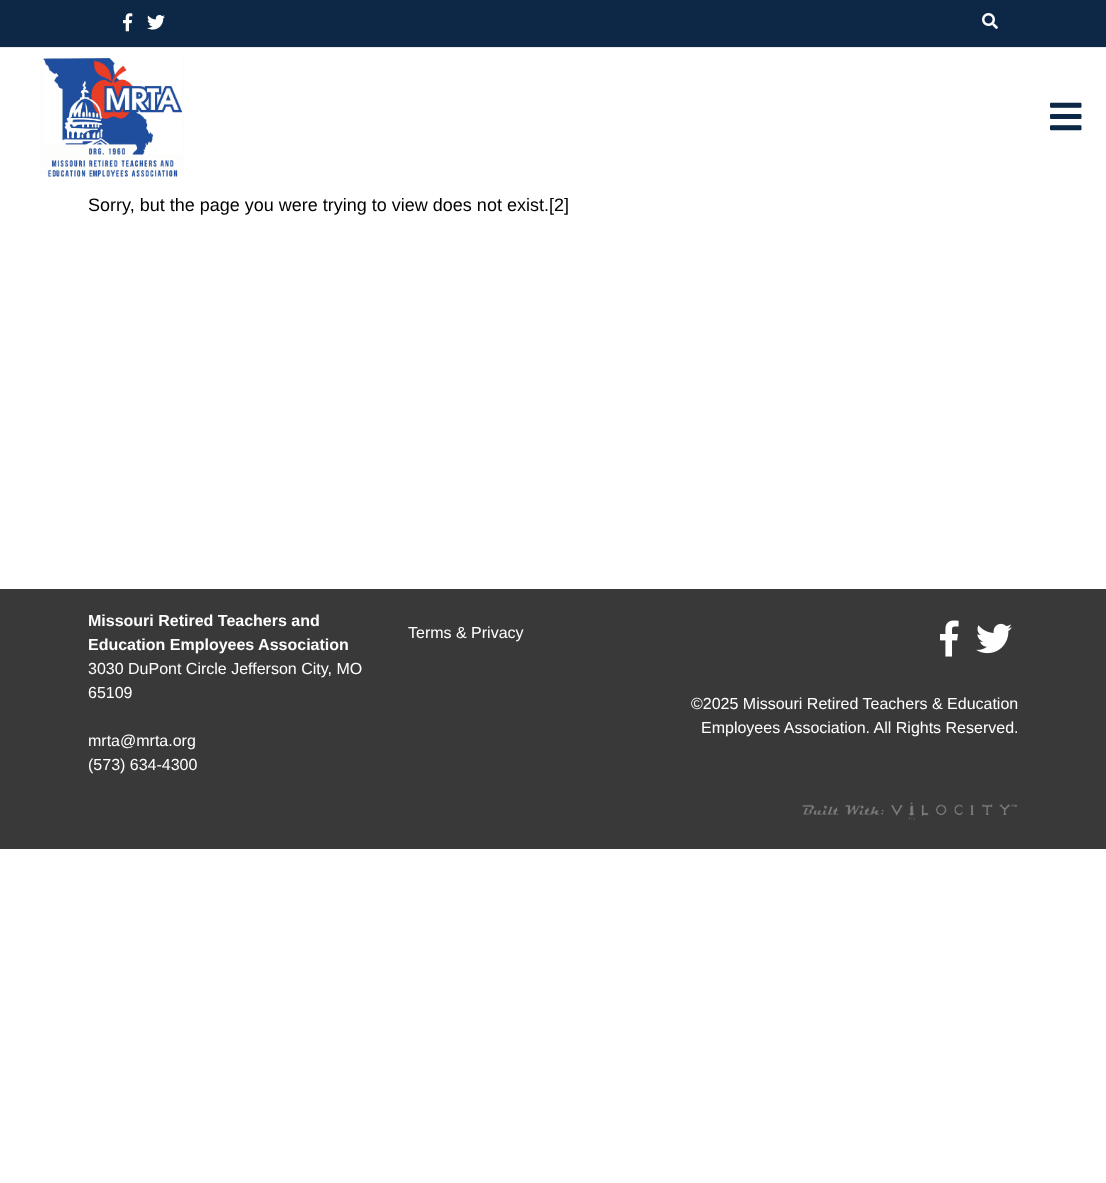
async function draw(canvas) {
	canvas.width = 1106;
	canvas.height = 1183;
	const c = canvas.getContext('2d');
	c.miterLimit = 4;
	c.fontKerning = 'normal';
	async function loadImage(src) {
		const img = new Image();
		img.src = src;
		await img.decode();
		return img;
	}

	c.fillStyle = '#fff';
	c.fillRect(0, 0, 1106, 1183);
	c.fillStyle = '#0d2847';
	c.fillRect(0, 0, 1106, 47);
	c.fillStyle = '#ebebeb';
	c.fillRect(0, 47, 1106, 1);
	c.drawImage(await loadImage('img1.png'), 123, 13, 10, 19);
	c.drawImage(await loadImage('img2.png'), 147, 14, 18, 16);
	c.drawImage(await loadImage('img3.png'), 982, 13, 16, 16);
	c.drawImage(await loadImage('img4.png'), 40, 58, 144, 119);
	c.drawImage(await loadImage('img5.png'), 1050, 102, 32, 29);
	c.font = '18px Liberation Sans';
	c.fillStyle = '#000';
	c.fillText('Sorry, but the page you were trying to view does not exist.[2]', 88, 211);
	c.fillStyle = '#39393a';
	c.fillRect(0, 589, 1106, 260);
	c.font = 'bold 16px Liberation Sans';
	c.fillStyle = '#fff';
	c.fillText('Missouri Retired Teachers and', 88, 626);
	c.fillText('Education Employees Association', 88, 650);
	c.font = '16px Liberation Sans';
	for (const [text, x, y] of [
		['3030 DuPont Circle Jefferson City, MO', 88, 674],
		['65109', 88, 698],
		['mrta@mrta.org', 88, 746],
		['(573) 634-4300', 88, 770],
		['Terms & Privacy', 408, 638],
	]) {
		c.fillText(text, x, y);
	}
	c.drawImage(await loadImage('img6.png'), 940, 620, 19, 37);
	c.drawImage(await loadImage('img7.png'), 976, 623, 36, 31);
	c.fillText('©2025 Missouri Retired Teachers & Education', 691, 709);
	c.fillText('Employees Association. All Rights Reserved.', 701, 733);
	c.drawImage(await loadImage('img8.png'), 802, 802, 216, 18);
}

draw(document.querySelector('canvas'));
